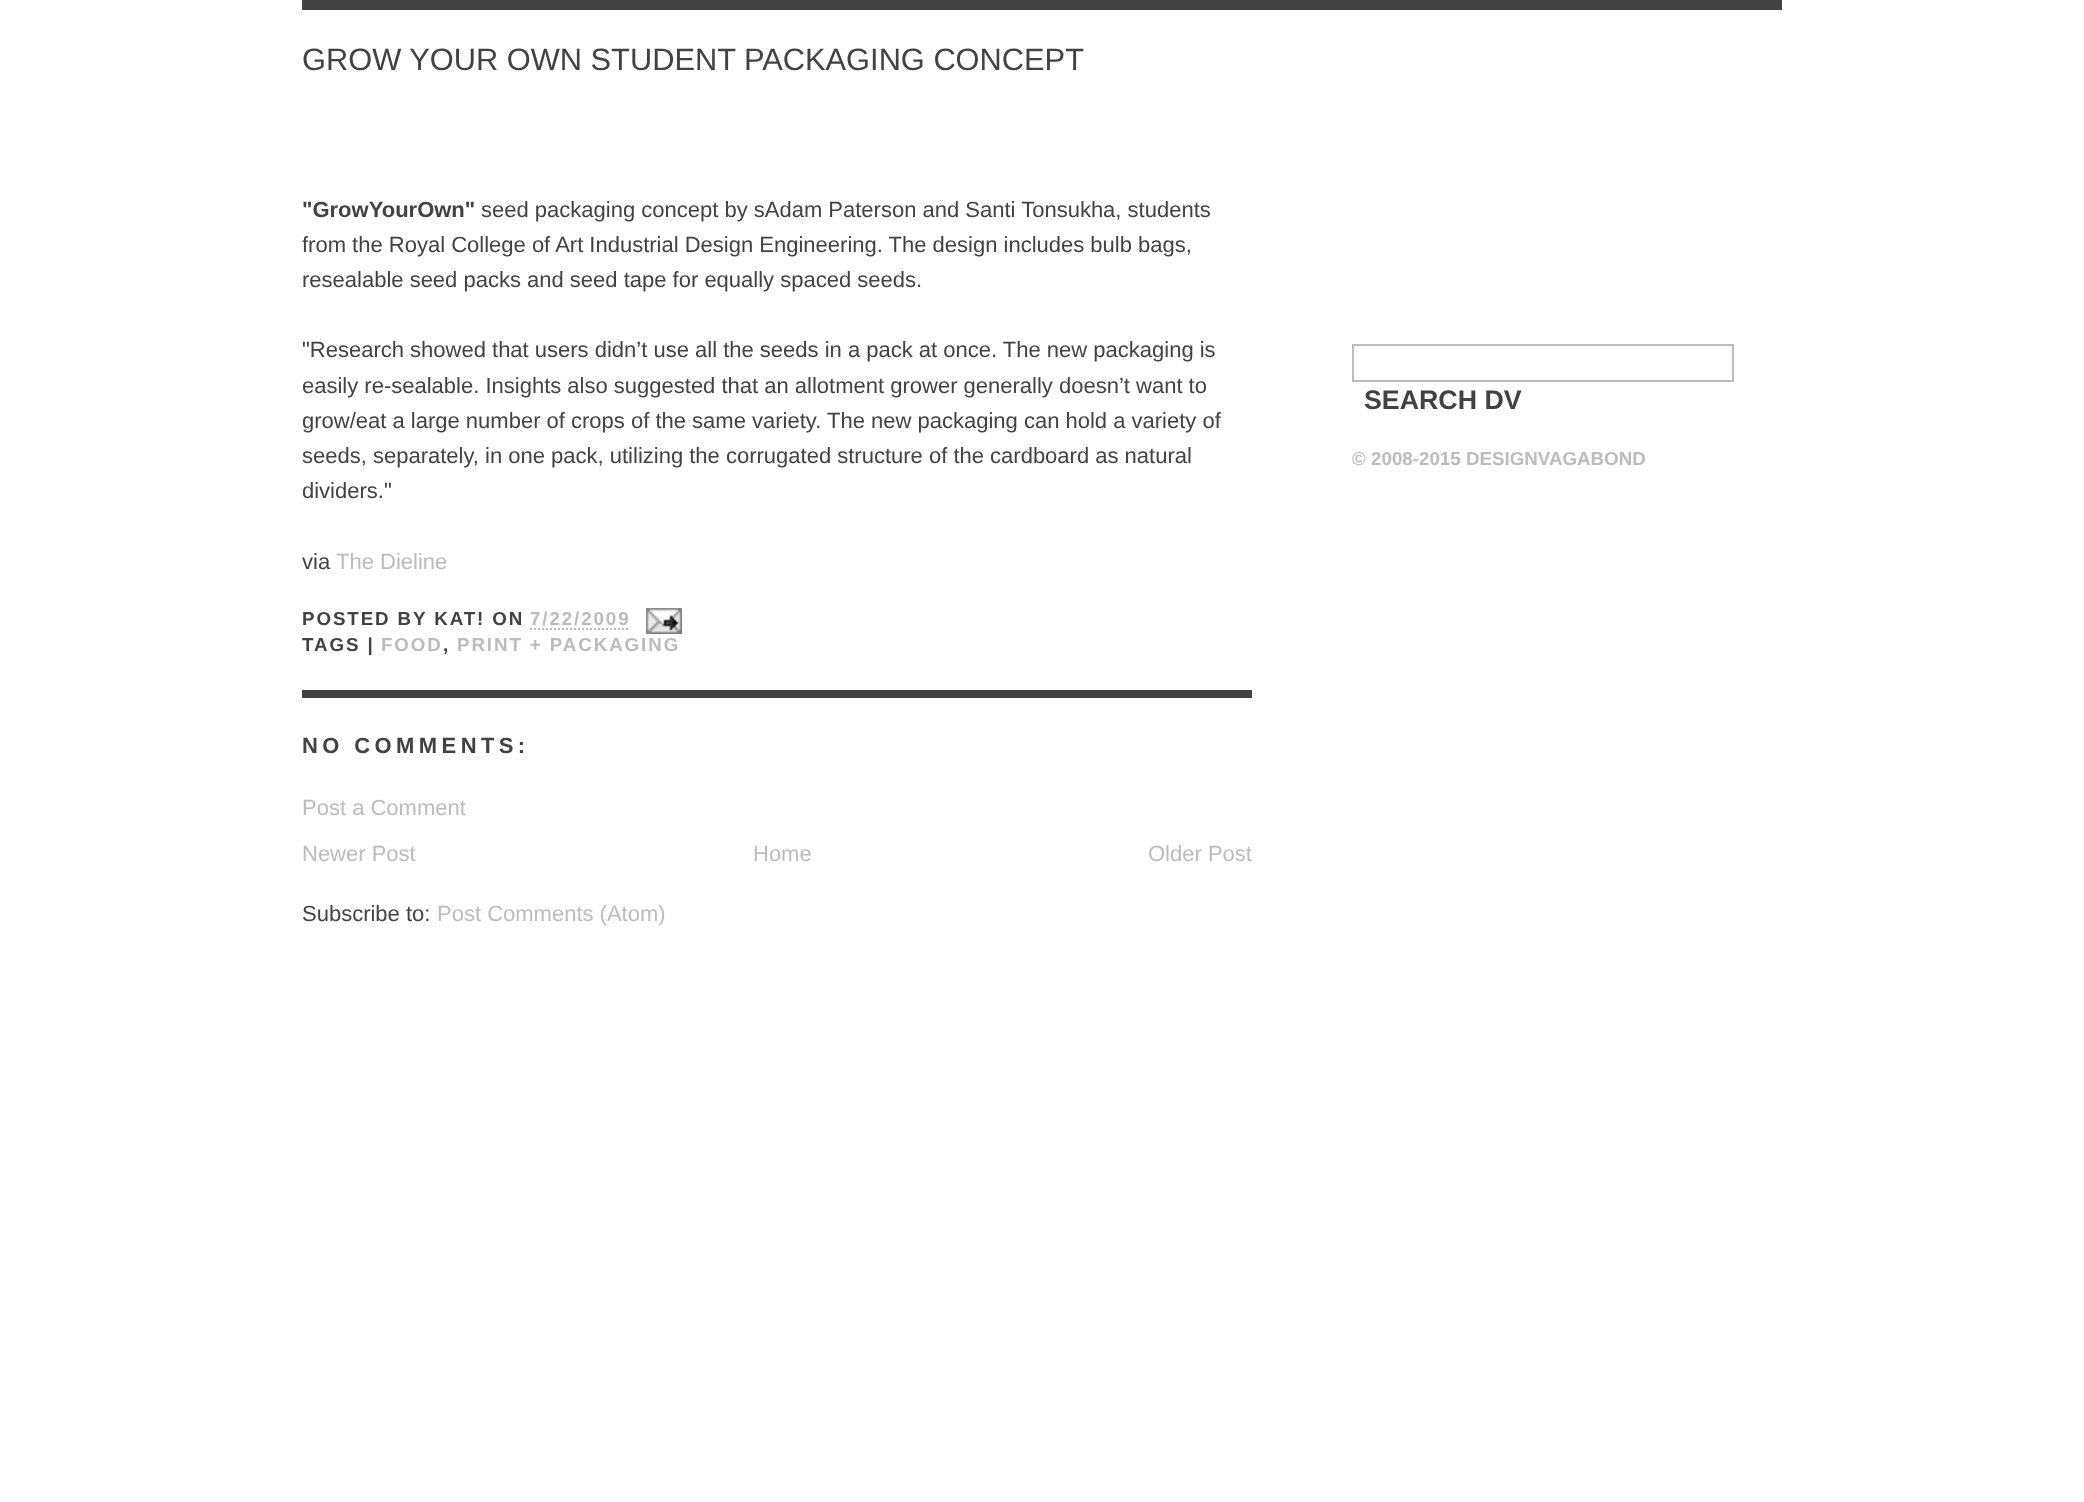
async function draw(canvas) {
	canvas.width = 2084;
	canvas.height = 1502;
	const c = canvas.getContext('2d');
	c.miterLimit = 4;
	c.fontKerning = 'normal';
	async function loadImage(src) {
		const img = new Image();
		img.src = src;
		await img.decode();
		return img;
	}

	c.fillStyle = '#fff';
	c.fillRect(0, 0, 2084, 1502);
	c.fillStyle = '#424242';
	c.fillRect(302, 0, 1480, 10);
	c.fillRect(302, 690, 950, 8);
	c.font = '30.8px Liberation Sans';
	c.fillText('GROW YOUR OWN STUDENT PACKAGING CONCEPT', 302, 70);
	c.font = 'bold 22px Liberation Sans';
	c.fillText('"GrowYourOwn"', 302, 217);
	c.font = '22px Liberation Sans';
	for (const [text, x, y] of [
		['seed packaging concept by sAdam Paterson and Santi Tonsukha, students', 481, 217],
		['from the Royal College of Art Industrial Design Engineering. The design includes bulb bags,', 302, 252],
		['resealable seed packs and seed tape for equally spaced seeds.', 302, 287],
		['"Research showed that users didn’t use all the seeds in a pack at once. The new packaging is', 302, 357],
		['easily re-sealable. Insights also suggested that an allotment grower generally doesn’t want to', 302, 393],
		['grow/eat a large number of crops of the same variety. The new packaging can hold a variety of', 302, 428],
		['seeds, separately, in one pack, utilizing the corrugated structure of the cardboard as natural', 302, 463],
		['dividers."', 302, 498],
		['via', 302, 569],
	]) {
		c.fillText(text, x, y);
	}
	c.fillStyle = '#bcbcbc';
	c.fillText('The Dieline', 336, 569);
	c.letterSpacing = '1.9px';
	c.font = 'bold 18.75px Liberation Sans';
	c.fillStyle = '#424242';
	c.fillText('POSTED BY KAT! ON', 302, 625);
	c.fillStyle = '#bcbcbc';
	c.fillText('7/22/2009', 530, 625);
	c.beginPath();
	c.moveTo(530, 629);
	c.lineTo(630, 629);
	c.strokeStyle = '#bcbcbc';
	c.lineWidth = 2;
	c.setLineDash([2, 2]);
	c.stroke();
	c.drawImage(await loadImage('img1.png'), 646, 608, 36, 26);
	c.fillStyle = '#424242';
	c.fillText('TAGS |', 302, 651);
	c.fillStyle = '#bcbcbc';
	c.fillText('FOOD', 381, 651);
	c.fillStyle = '#424242';
	c.fillText(',', 443, 651);
	c.fillStyle = '#bcbcbc';
	c.fillText('PRINT + PACKAGING', 457, 651);
	c.letterSpacing = '4.4px';
	c.font = 'bold 22px Liberation Sans';
	c.fillStyle = '#424242';
	c.fillText('NO COMMENTS:', 302, 753);
	c.letterSpacing = '0px';
	c.font = '22px Liberation Sans';
	c.fillStyle = '#bcbcbc';
	for (const [text, x, y] of [
		['Post a Comment', 302, 815],
		['Newer Post', 302, 861],
		['Home', 753, 861],
		['Older Post', 1148, 861],
	]) {
		c.fillText(text, x, y);
	}
	c.fillStyle = '#424242';
	c.fillText('Subscribe to:', 302, 921);
	c.fillStyle = '#bcbcbc';
	c.fillText('Post Comments (Atom)', 437, 921);
	c.setLineDash([]);
	c.strokeRect(1353, 345, 380, 36);
	c.font = 'bold 26.75px Liberation Sans';
	c.fillStyle = '#424242';
	c.fillText('SEARCH DV', 1364, 409);
	c.font = 'bold 18.75px Liberation Sans';
	c.fillStyle = '#bcbcbc';
	c.fillText('© 2008-2015 DESIGNVAGABOND', 1352, 465);
}

draw(document.querySelector('canvas'));
